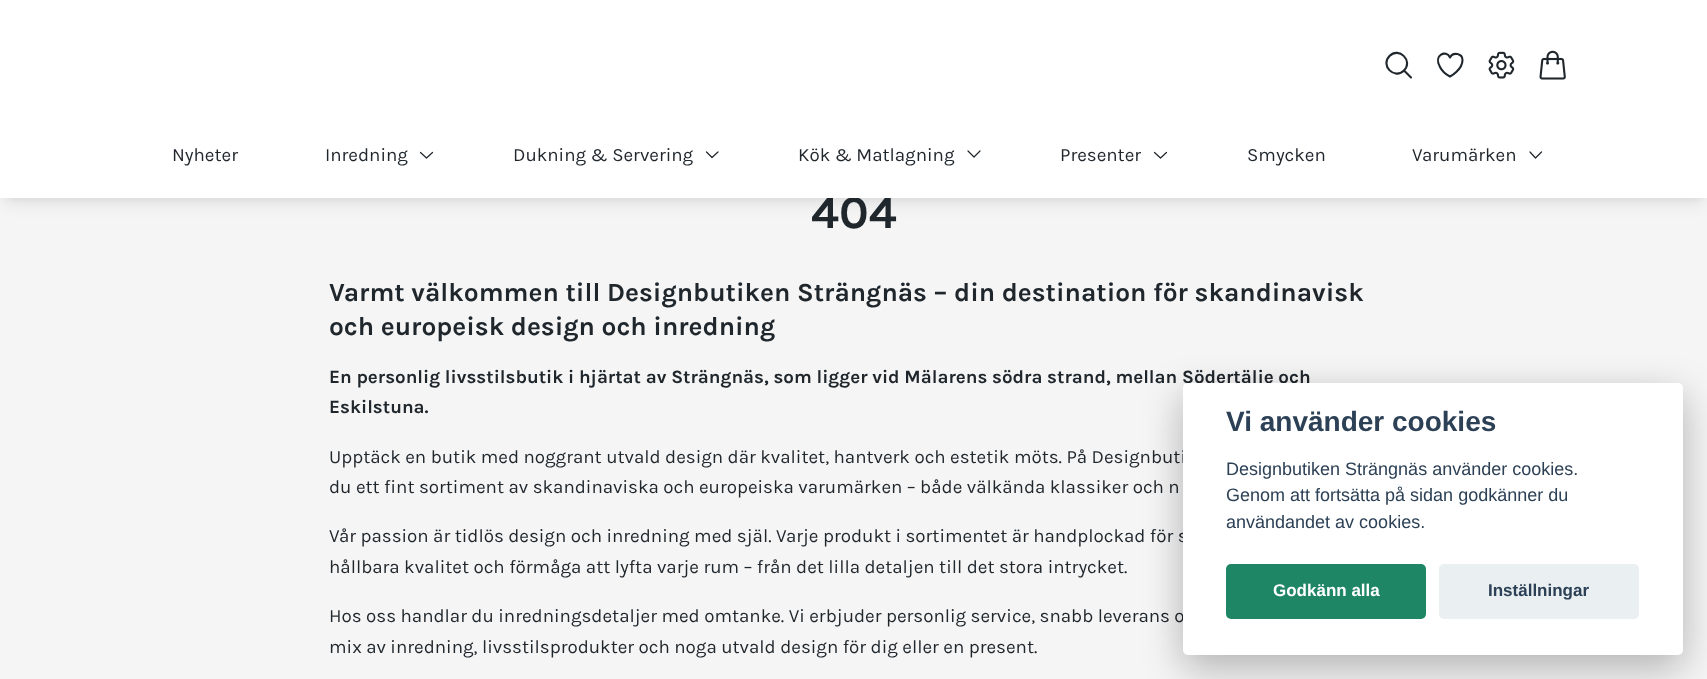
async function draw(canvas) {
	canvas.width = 1707;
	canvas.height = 679;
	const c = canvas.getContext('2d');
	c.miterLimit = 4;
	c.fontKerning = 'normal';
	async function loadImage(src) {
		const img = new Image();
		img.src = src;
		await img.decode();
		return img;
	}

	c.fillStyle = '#f5f5f5';
	c.fillRect(0, 0, 1707, 679);
	c.fillStyle = '#00000012';
	c.filter = 'blur(4px)';
	c.beginPath();
	c.rect(5, 10, 1698, 188);
	c.fill();
	c.filter = 'none';
	c.filter = 'blur(8px)';
	c.beginPath();
	c.rect(4, 14, 1700, 190);
	c.fill();
	c.filter = 'none';
	c.font = 'bold 47px Karla';
	c.fillStyle = '#1f262c';
	c.fillText('404', 811, 228);
	c.fillStyle = '#fff';
	c.fillRect(0, 0, 1707, 198);
	c.beginPath();
	c.moveTo(1411, 77.5);
	c.lineTo(1404, 70.5);
	c.moveTo(1404, 70.5);
	c.bezierCurveTo(1413.5, 61, 1399, 46.5, 1389.5, 56);
	c.bezierCurveTo(1380, 65.5, 1394.5, 80, 1404, 70.5);
	c.closePath();
	c.strokeStyle = '#1f262c';
	c.lineWidth = 2.1;
	c.lineCap = 'round';
	c.lineJoin = 'round';
	c.stroke();
	c.beginPath();
	c.moveTo(1462.5, 60);
	c.bezierCurveTo(1462.5, 53.5, 1453, 51.5, 1450, 57.5);
	c.bezierCurveTo(1446.5, 49.5, 1433, 54.5, 1440, 67);
	c.bezierCurveTo(1442, 71, 1446, 74.5, 1450, 76.5);
	c.bezierCurveTo(1450, 76.5, 1462.5, 70, 1462.5, 60);
	c.closePath();
	c.stroke();
	c.drawImage(await loadImage('img1.png'), 1488, 51, 27, 28);
	c.drawImage(await loadImage('img2.png'), 1539, 50, 27, 30);
	c.font = '18.75px Karla';
	c.fillStyle = '#1f262c';
	c.fillText('Nyheter', 172, 161);
	c.fillText('Inredning', 325, 161);
	c.beginPath();
	c.moveTo(432.5, 152.5);
	c.lineTo(426.5, 158);
	c.lineTo(420.5, 152.5);
	c.lineWidth = 1.2;
	c.stroke();
	c.fillText('Dukning & Servering', 513, 161);
	c.beginPath();
	c.moveTo(718, 152);
	c.lineTo(712, 157.5);
	c.lineTo(706.5, 152);
	c.stroke();
	c.fillText('Kök & Matlagning', 798, 161);
	c.beginPath();
	c.moveTo(980, 151);
	c.lineTo(974, 157);
	c.lineTo(968, 151);
	c.stroke();
	c.fillText('Presenter', 1060, 161);
	c.beginPath();
	c.moveTo(1166.5, 152.5);
	c.lineTo(1160.5, 158);
	c.lineTo(1154.5, 152.5);
	c.stroke();
	c.fillText('Smycken', 1247, 161);
	c.fillText('Varumärken', 1412, 161);
	c.beginPath();
	c.moveTo(1541.5, 152);
	c.lineTo(1535.5, 158);
	c.lineTo(1530, 152);
	c.stroke();
	c.font = 'bold 26.25px Karla';
	c.fillText('Varmt välkommen till Designbutiken Strängnäs – din destination för skandinavisk', 329, 301);
	c.fillText('och europeisk design och inredning', 329, 335);
	c.font = 'bold 18.75px Karla';
	c.fillText('En personlig livsstilsbutik i hjärtat av Strängnäs, som ligger vid Mälarens södra strand, mellan Södertälje och', 329, 383);
	c.fillText('Eskilstuna.', 329, 413);
	c.font = '18.75px Karla';
	for (const [text, x, y] of [
		['Upptäck en butik med noggrant utvald design där kvalitet, hantverk och estetik möts. På Designbuti', 329, 463],
		['du ett fint sortiment av skandinaviska och europeiska varumärken – både välkända klassiker och n', 329, 493],
		['Vår passion är tidlös design och inredning med själ. Varje produkt i sortimentet är handplockad för s', 329, 542],
		['hållbara kvalitet och förmåga att lyfta varje rum – från det lilla detaljen till det stora intrycket.', 329, 573],
		['Hos oss handlar du inredningsdetaljer med omtanke. Vi erbjuder personlig service, snabb leverans o', 329, 622],
		['mix av inredning, livsstilsprodukter och noga utvald design för dig eller en present.', 329, 653],
	]) {
		c.fillText(text, x, y);
	}
	c.fillStyle = '#02020347';
	c.filter = 'blur(19px)';
	c.beginPath();
	c.roundRect(1183, 395, 500, 273, 5);
	c.fill();
	c.filter = 'none';
	c.fillStyle = '#fff';
	c.beginPath();
	c.roundRect(1183, 383, 500, 272, 5);
	c.fill();
	c.font = 'bold 28px Liberation Sans';
	c.fillStyle = '#2d4156';
	c.fillText('Vi använder cookies', 1226, 431);
	c.font = '18px Liberation Sans';
	for (const [text, x, y] of [
		['Designbutiken Strängnäs använder cookies.', 1226, 475],
		['Genom att fortsätta på sidan godkänner du', 1226, 501],
		['användandet av cookies.', 1226, 528],
	]) {
		c.fillText(text, x, y);
	}
	c.fillStyle = '#1f8665';
	c.beginPath();
	c.roundRect(1226, 564, 200, 55, 5);
	c.fill();
	c.font = 'bold 17px Liberation Sans';
	c.fillStyle = '#fff';
	c.fillText('Godkänn alla', 1273, 596);
	c.fillStyle = '#eaeff2';
	c.beginPath();
	c.roundRect(1439, 564, 200, 55, 5);
	c.fill();
	c.fillStyle = '#2d4156';
	c.fillText('Inställningar', 1488, 596);
}

draw(document.querySelector('canvas'));
